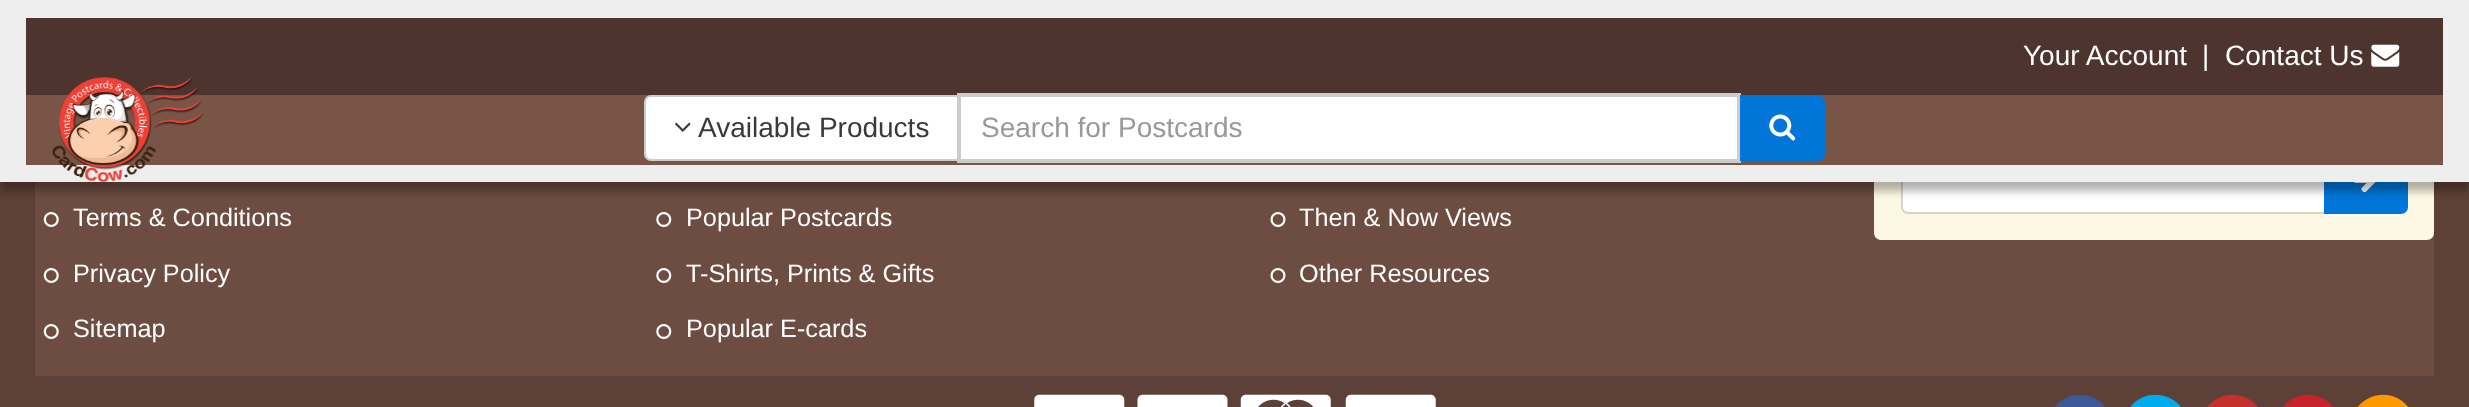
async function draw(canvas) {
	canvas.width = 2469;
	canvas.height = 407;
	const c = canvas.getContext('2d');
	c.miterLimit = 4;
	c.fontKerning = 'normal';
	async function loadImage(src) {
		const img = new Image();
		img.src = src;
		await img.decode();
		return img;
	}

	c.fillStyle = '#5d4037';
	c.fillRect(0, 0, 2469, 407);
	c.fillStyle = '#6d4c41';
	c.fillRect(35, 182, 2399, 194);
	c.fillStyle = '#fcf8e3';
	c.beginPath();
	c.roundRect(1874, 9, 560, 231, [0, 0, 7, 7]);
	c.fill();
	c.fillStyle = '#fff';
	c.beginPath();
	c.roundRect(1902, 149, 422, 63, [5, 0, 0, 5]);
	c.fill();
	c.beginPath();
	c.roundRect(1902, 148, 423, 65, [6, 0, 0, 6]);
	c.strokeStyle = '#00000026';
	c.lineWidth = 2;
	c.stroke();
	c.fillStyle = '#0275d8';
	c.beginPath();
	c.roundRect(2325, 148, 82, 65, [0, 6, 6, 0]);
	c.fill();
	c.strokeStyle = '#0275d8';
	c.stroke();
	c.drawImage(await loadImage('img5.png'), 2354, 182, 22, 11);
	c.fillStyle = '#0000004d';
	c.filter = 'blur(4.5px)';
	c.beginPath();
	c.rect(0, 9, 2469, 182);
	c.fill();
	c.filter = 'none';
	c.fillStyle = '#eee';
	c.fillRect(0, 0, 2469, 182);
	c.fillStyle = '#4e342e';
	c.fillRect(26, 18, 2417, 77);
	c.font = '28px Liberation Sans';
	c.fillStyle = '#fff';
	for (const [text, x, y] of [
		['Your Account', 2023, 65],
		['|', 2202, 65],
		['Contact Us', 2225, 65],
	]) {
		c.fillText(text, x, y);
	}
	c.drawImage(await loadImage('img1.png'), 2371, 44, 29, 23);
	c.fillStyle = '#795548';
	c.fillRect(26, 95, 2417, 70);
	c.drawImage(await loadImage('img2.png'), 52, 77, 152, 105);
	c.fillStyle = '#fff';
	c.beginPath();
	c.roundRect(645, 96, 313, 64, [6, 0, 0, 6]);
	c.fill();
	c.strokeStyle = '#ccc';
	c.stroke();
	c.drawImage(await loadImage('img3.png'), 675, 122, 16, 10);
	c.fillStyle = '#373a3c';
	c.fillText('Available Products', 698, 137);
	c.fillStyle = '#fff';
	c.beginPath();
	c.rect(959, 95, 780, 66);
	c.fill();
	c.lineWidth = 4;
	c.stroke();
	c.fillStyle = '#999';
	c.fillText('Search for Postcards', 981, 137);
	c.fillStyle = '#0275d8';
	c.beginPath();
	c.roundRect(1741, 96, 83, 64, [0, 6, 6, 0]);
	c.fill();
	c.strokeStyle = '#0275d8';
	c.lineWidth = 2;
	c.stroke();
	c.drawImage(await loadImage('img4.png'), 1769, 114, 27, 27);
	c.drawImage(await loadImage('img6.png'), 43, 212, 16, 15);
	c.font = '25.25px Liberation Sans';
	c.fillStyle = '#fff';
	c.fillText('Terms & Conditions', 73, 226);
	c.drawImage(await loadImage('img6.png'), 43, 268, 16, 15);
	c.fillText('Privacy Policy', 73, 282);
	c.drawImage(await loadImage('img6.png'), 43, 324, 16, 15);
	c.fillText('Sitemap', 73, 337);
	c.drawImage(await loadImage('img7.png'), 656, 212, 16, 15);
	c.fillText('Popular Postcards', 686, 226);
	c.drawImage(await loadImage('img7.png'), 656, 268, 16, 15);
	c.fillText('T-Shirts, Prints & Gifts', 686, 282);
	c.drawImage(await loadImage('img7.png'), 656, 324, 16, 15);
	c.fillText('Popular E-cards', 686, 337);
	c.drawImage(await loadImage('img8.png'), 1270, 212, 16, 15);
	c.fillText('Then & Now Views', 1299, 226);
	c.drawImage(await loadImage('img8.png'), 1270, 268, 16, 15);
	c.fillText('Other Resources', 1299, 282);
	c.drawImage(await loadImage('img9.png'), 1034, 394, 91, 13);
	c.drawImage(await loadImage('img10.png'), 1137, 394, 91, 13);
	c.drawImage(await loadImage('img11.png'), 1240, 394, 91, 13);
	c.drawImage(await loadImage('img12.png'), 1345, 394, 91, 13);
	c.fillStyle = '#3b5998';
	c.beginPath();
	c.moveTo(2107, 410);
	c.bezierCurveTo(2111, 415, 2112, 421, 2112, 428);
	c.bezierCurveTo(2110, 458, 2069, 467, 2053, 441);
	c.bezierCurveTo(2050, 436, 2049, 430, 2049, 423);
	c.bezierCurveTo(2051, 393, 2092, 384, 2107, 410);
	c.closePath();
	c.fill();
	c.fillStyle = '#00acee';
	c.beginPath();
	c.moveTo(2183, 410);
	c.bezierCurveTo(2186, 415, 2187, 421, 2187, 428);
	c.bezierCurveTo(2185, 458, 2144, 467, 2129, 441);
	c.bezierCurveTo(2126, 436, 2124, 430, 2125, 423);
	c.bezierCurveTo(2126, 393, 2167, 384, 2183, 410);
	c.closePath();
	c.fill();
	c.fillStyle = '#c4302b';
	c.beginPath();
	c.moveTo(2260, 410);
	c.bezierCurveTo(2263, 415, 2264, 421, 2264, 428);
	c.bezierCurveTo(2262, 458, 2221, 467, 2206, 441);
	c.bezierCurveTo(2203, 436, 2201, 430, 2202, 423);
	c.bezierCurveTo(2203, 393, 2244, 384, 2260, 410);
	c.closePath();
	c.fill();
	c.fillStyle = '#c8232c';
	c.beginPath();
	c.moveTo(2335, 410);
	c.bezierCurveTo(2338, 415, 2339, 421, 2339, 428);
	c.bezierCurveTo(2337, 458, 2296, 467, 2281, 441);
	c.bezierCurveTo(2278, 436, 2276, 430, 2277, 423);
	c.bezierCurveTo(2279, 393, 2320, 384, 2335, 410);
	c.closePath();
	c.fill();
	c.fillStyle = '#fe9900';
	c.beginPath();
	c.moveTo(2410, 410);
	c.bezierCurveTo(2413, 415, 2415, 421, 2414, 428);
	c.bezierCurveTo(2412, 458, 2372, 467, 2356, 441);
	c.bezierCurveTo(2353, 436, 2352, 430, 2352, 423);
	c.bezierCurveTo(2354, 393, 2395, 384, 2410, 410);
	c.closePath();
	c.fill();
}

draw(document.querySelector('canvas'));
